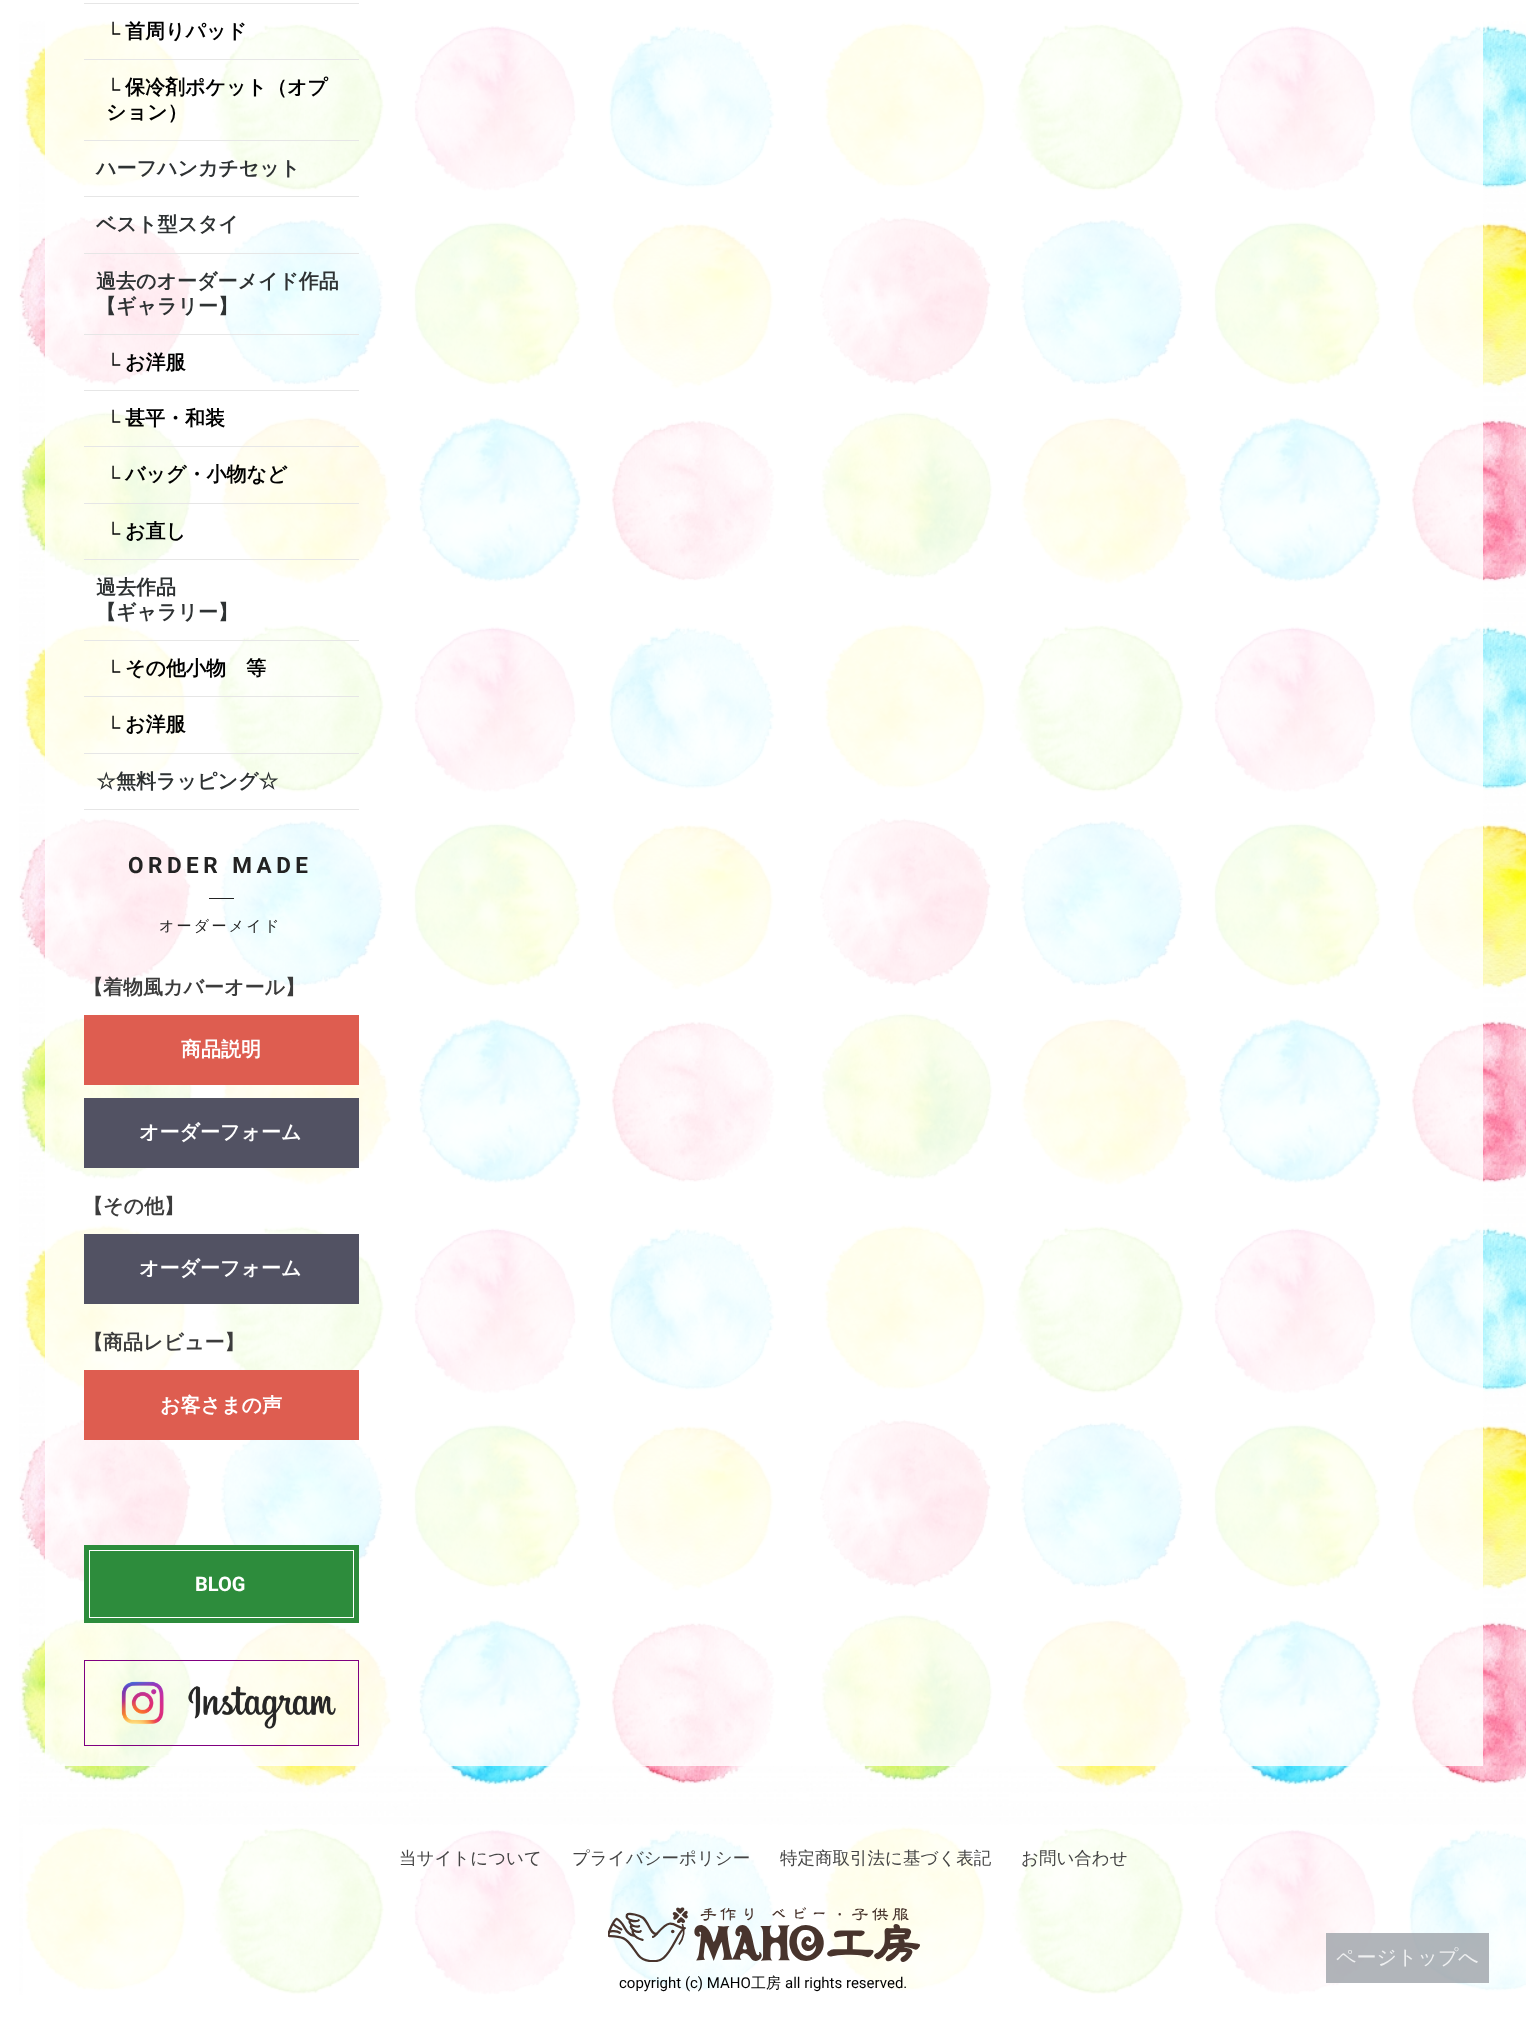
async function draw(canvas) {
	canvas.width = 1526;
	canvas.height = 2019;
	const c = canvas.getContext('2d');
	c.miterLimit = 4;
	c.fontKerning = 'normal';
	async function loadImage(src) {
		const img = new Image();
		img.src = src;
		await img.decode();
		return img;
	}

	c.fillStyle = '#fff';
	c.fillRect(0, 0, 1526, 2019);
	c.drawImage(await loadImage('img1.png'), 19, 21, 1507, 1974);
	for (const [x, y, w, h, color] of [
		[45, 21, 1438, 1745, '#ffffffd9'],
		[84, 3, 275, 1, '#e6e6e6'],
		[84, 59, 275, 1, '#e6e6e6'],
	]) {
		c.fillStyle = color;
		c.fillRect(x, y, w, h);
	}
	c.font = 'bold 20px Liberation Sans';
	c.fillStyle = '#000';
	c.fillText('└', 106, 40);
	c.font = 'bold 20px WenQuanYi Zen Hei';
	c.fillText('首周りパッド', 125, 38);
	c.fillStyle = '#e6e6e6';
	c.fillRect(84, 140, 275, 1);
	c.font = 'bold 20px Liberation Sans';
	c.fillStyle = '#000';
	c.fillText('└', 106, 96);
	c.font = 'bold 20px WenQuanYi Zen Hei';
	c.fillText('保冷剤ポケット（オプ', 125, 94);
	c.fillText('ション）', 106, 119);
	c.fillStyle = '#e6e6e6';
	c.fillRect(84, 196, 275, 1);
	c.fillStyle = '#2e3233';
	c.fillText('ハーフハンカチセット', 96, 175);
	c.fillStyle = '#e6e6e6';
	c.fillRect(84, 253, 275, 1);
	c.fillStyle = '#2e3233';
	c.fillText('ベスト型スタイ', 96, 231);
	c.fillStyle = '#e6e6e6';
	c.fillRect(84, 334, 275, 1);
	c.fillStyle = '#2e3233';
	c.fillText('過去のオーダーメイド作品', 96, 288);
	c.fillText('【ギャラリー】', 96, 313);
	c.fillStyle = '#e6e6e6';
	c.fillRect(84, 390, 275, 1);
	c.font = 'bold 20px Liberation Sans';
	c.fillStyle = '#000';
	c.fillText('└', 106, 371);
	c.font = 'bold 20px WenQuanYi Zen Hei';
	c.fillText('お洋服', 125, 369);
	c.fillStyle = '#e6e6e6';
	c.fillRect(84, 446, 275, 1);
	c.font = 'bold 20px Liberation Sans';
	c.fillStyle = '#000';
	c.fillText('└', 106, 428);
	c.font = 'bold 20px WenQuanYi Zen Hei';
	c.fillText('甚平・和装', 125, 425);
	c.fillStyle = '#e6e6e6';
	c.fillRect(84, 503, 275, 1);
	c.font = 'bold 20px Liberation Sans';
	c.fillStyle = '#000';
	c.fillText('└', 106, 484);
	c.font = 'bold 20px WenQuanYi Zen Hei';
	c.fillText('バッグ・小物など', 125, 481);
	c.fillStyle = '#e6e6e6';
	c.fillRect(84, 559, 275, 1);
	c.font = 'bold 20px Liberation Sans';
	c.fillStyle = '#000';
	c.fillText('└', 106, 540);
	c.font = 'bold 20px WenQuanYi Zen Hei';
	c.fillText('お直し', 125, 538);
	c.fillStyle = '#e6e6e6';
	c.fillRect(84, 640, 275, 1);
	c.fillStyle = '#2e3233';
	c.fillText('過去作品', 96, 594);
	c.fillText('【ギャラリー】', 96, 619);
	c.fillStyle = '#e6e6e6';
	c.fillRect(84, 696, 275, 1);
	c.font = 'bold 20px Liberation Sans';
	c.fillStyle = '#000';
	c.fillText('└', 106, 678);
	c.font = 'bold 20px WenQuanYi Zen Hei';
	c.fillText('その他小物　等', 125, 675);
	c.fillStyle = '#e6e6e6';
	c.fillRect(84, 753, 275, 1);
	c.font = 'bold 20px Liberation Sans';
	c.fillStyle = '#000';
	c.fillText('└', 106, 734);
	c.font = 'bold 20px WenQuanYi Zen Hei';
	c.fillText('お洋服', 125, 731);
	c.fillStyle = '#e6e6e6';
	c.fillRect(84, 809, 275, 1);
	c.fillStyle = '#2e3233';
	c.fillText('☆無料ラッピング☆', 96, 788);
	c.letterSpacing = '4.5px';
	c.font = 'bold 22.5px Roboto';
	c.fillStyle = '#232323';
	c.fillText('ORDER MADE', 128, 873);
	c.fillRect(209, 898, 25, 1);
	c.letterSpacing = '2.25px';
	c.font = '500 15px WenQuanYi Zen Hei';
	c.fillText('オーダーメイド', 159, 931);
	c.letterSpacing = '0px';
	c.font = 'bold 20px WenQuanYi Zen Hei';
	c.fillStyle = '#3c3c3c';
	c.fillText('【着物風カバーオール】', 83, 994);
	c.fillStyle = '#de5d50';
	c.fillRect(84, 1015, 275, 70);
	c.fillStyle = '#fff';
	c.fillText('商品説明', 181, 1056);
	c.fillStyle = '#525263';
	c.fillRect(84, 1098, 275, 70);
	c.fillStyle = '#fff';
	c.fillText('オーダーフォーム', 139, 1139);
	c.fillStyle = '#3c3c3c';
	c.fillText('【その他】', 83, 1213);
	c.fillStyle = '#525263';
	c.fillRect(84, 1234, 275, 70);
	c.fillStyle = '#fff';
	c.fillText('オーダーフォーム', 139, 1275);
	c.fillStyle = '#3c3c3c';
	c.fillText('【商品レビュー】', 83, 1349);
	c.fillStyle = '#de5d50';
	c.fillRect(84, 1370, 275, 70);
	c.fillStyle = '#fff';
	c.fillText('お客さまの声', 160, 1412);
	c.fillStyle = '#2d8c3c';
	c.fillRect(84, 1545, 275, 78);
	c.strokeStyle = '#fff';
	c.strokeRect(89.5, 1550.5, 264, 67);
	c.font = 'bold 20px Roboto';
	c.fillStyle = '#fff';
	c.fillText('BLOG', 195, 1591);
	c.strokeStyle = '#800080';
	c.strokeRect(84.5, 1660.5, 274, 85);
	c.drawImage(await loadImage('img2.png'), 121, 1681, 215, 48);
	c.fillStyle = '#ffffffd9';
	c.fillRect(23, 1825, 1503, 170);
	c.font = '500 17.5px WenQuanYi Zen Hei';
	c.fillStyle = '#444';
	for (const [text, x, y] of [
		['当サイトについて', 399, 1864],
		['プライバシーポリシー', 572, 1864],
		['特定商取引法に基づく表記', 780, 1864],
		['お問い合わせ', 1021, 1864],
	]) {
		c.fillText(text, x, y);
	}
	c.drawImage(await loadImage('img3.png'), 608, 1907, 312, 55);
	c.font = '15px Roboto';
	c.fillStyle = '#000';
	c.fillText('copyright (c) MAHO', 619, 1988);
	c.font = '500 15px WenQuanYi Zen Hei';
	c.fillText('工房', 751, 1988);
	c.font = '15px Roboto';
	c.fillText('all rights reserved.', 785, 1988);
	c.fillStyle = '#9da3a9cc';
	c.fillRect(1326, 1933, 163, 50);
	c.font = '500 20px WenQuanYi Zen Hei';
	c.fillStyle = '#eff0f1';
	c.fillText('ページトップへ', 1336, 1964);
}

draw(document.querySelector('canvas'));
